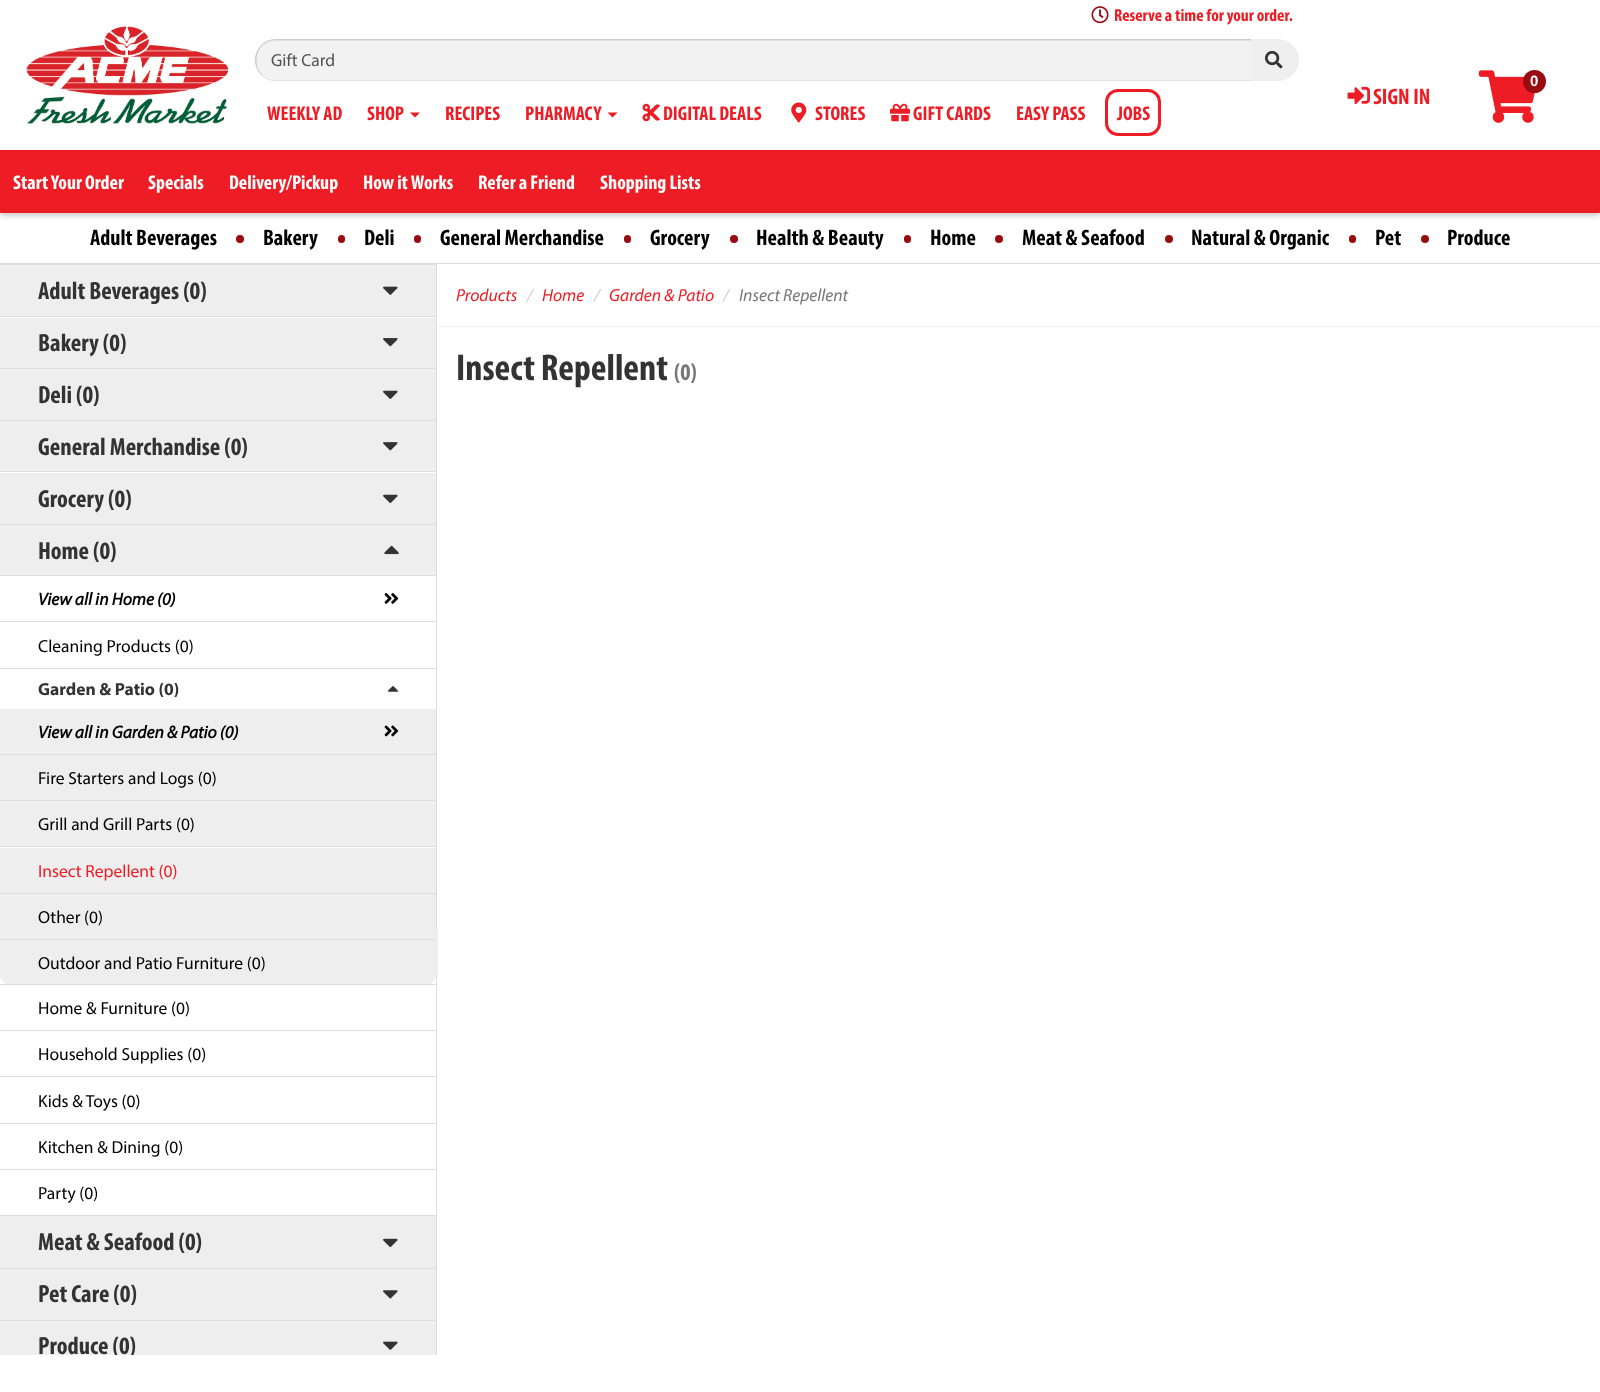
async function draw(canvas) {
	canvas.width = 1600;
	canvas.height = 1392;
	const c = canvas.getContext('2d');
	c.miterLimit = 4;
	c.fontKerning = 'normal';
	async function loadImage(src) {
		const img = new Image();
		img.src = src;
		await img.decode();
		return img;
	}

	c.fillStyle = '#fff';
	c.fillRect(0, 0, 1600, 1392);
	c.fillStyle = '#f1f1f1';
	c.fillRect(437, 928, 1, 47);
	c.drawImage(await loadImage('img1.png'), 26, 26, 203, 98);
	c.drawImage(await loadImage('img2.png'), 1091, 6, 18, 18);
	c.font = 'bold 17.5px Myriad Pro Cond';
	c.fillStyle = '#ee1c24';
	c.fillText('Reserve a time for your order.', 1114, 21);
	c.fillStyle = '#f2f2f2';
	c.beginPath();
	c.roundRect(255, 39, 998, 42, [21, 0, 0, 21]);
	c.fill();
	c.fillStyle = '#e0e0e0';
	c.beginPath();
	c.moveTo(276, 41);
	c.lineTo(1251, 41);
	c.lineTo(1251, 40);
	c.lineTo(276, 40);
	c.bezierCurveTo(262, 40, 252, 55, 257, 67);
	c.bezierCurveTo(254, 56, 260, 41, 276, 41);
	c.closePath();
	c.fill();
	c.fillStyle = '#ccc';
	c.beginPath();
	c.moveTo(276, 39);
	c.bezierCurveTo(270, 39, 265, 41, 261, 45);
	c.lineTo(262, 46);
	c.bezierCurveTo(265, 42, 270, 40, 276, 40);
	c.lineTo(1251, 40);
	c.lineTo(1252, 39);
	c.closePath();
	c.fill();
	c.fillStyle = '#e2e2e2';
	c.beginPath();
	c.moveTo(1252, 81);
	c.lineTo(276, 81);
	c.bezierCurveTo(270, 81, 265, 79, 261, 75);
	c.lineTo(262, 74);
	c.bezierCurveTo(265, 78, 270, 80, 276, 80);
	c.lineTo(1251, 80);
	c.closePath();
	c.fill();
	c.fillStyle = '#ccc';
	c.beginPath();
	c.moveTo(255, 60);
	c.bezierCurveTo(255, 66, 257.5, 71, 261.5, 75);
	c.lineTo(262, 74.5);
	c.bezierCurveTo(254.5, 66.5, 254.5, 53.5, 262, 45.5);
	c.lineTo(261.5, 45);
	c.bezierCurveTo(257.5, 49, 255, 54, 255, 60);
	c.closePath();
	c.fill();
	c.font = '17.5px Myriad';
	c.fillStyle = '#555';
	c.fillText('Gift Card', 271, 66);
	c.fillStyle = '#efefef';
	c.beginPath();
	c.roundRect(1251, 39, 48, 42, [0, 21, 21, 0]);
	c.fill();
	c.drawImage(await loadImage('img3.png'), 1265, 50, 18, 19);
	c.drawImage(await loadImage('img4.png'), 1478, 70, 57, 53);
	c.fillStyle = '#990b11';
	c.beginPath();
	c.arc(1534.5, 81.5, 11.5, 0, 2 * Math.PI);
	c.fill();
	c.font = 'bold 15px Liberation Sans';
	c.fillStyle = '#fff';
	c.fillText('0', 1530, 86);
	c.drawImage(await loadImage('img5.png'), 1347, 86, 23, 19);
	c.font = 'bold 22.5px Myriad Pro Cond';
	c.fillStyle = '#ee1c24';
	c.fillText('SIGN IN', 1373, 104);
	c.font = 'bold 20px Myriad Pro Cond';
	c.fillText('WEEKLY AD', 267, 120);
	c.fillText('SHOP', 367, 120);
	c.beginPath();
	c.moveTo(410, 112.5);
	c.lineTo(420, 112.5);
	c.lineTo(415, 117.5);
	c.closePath();
	c.fill();
	c.fillText('RECIPES', 445, 120);
	c.fillText('PHARMACY', 525, 120);
	c.beginPath();
	c.moveTo(607.5, 112.5);
	c.lineTo(617.5, 112.5);
	c.lineTo(612.5, 117.5);
	c.closePath();
	c.fill();
	c.drawImage(await loadImage('img6.png'), 642, 103, 18, 19);
	c.fillText('DIGITAL DEALS', 663, 120);
	c.drawImage(await loadImage('img7.png'), 791, 102, 16, 21);
	c.fillText('STORES', 815, 120);
	c.drawImage(await loadImage('img8.png'), 890, 103, 20, 19);
	c.fillText('GIFT CARDS', 913, 120);
	c.fillText('EASY PASS', 1016, 120);
	c.beginPath();
	c.roundRect(1106.5, 90.5, 53, 44, 11.5);
	c.strokeStyle = '#ee1c24';
	c.lineWidth = 3;
	c.stroke();
	c.fillText('JOBS', 1117, 120);
	c.fillStyle = '#00000040';
	c.filter = 'blur(3px)';
	c.beginPath();
	c.rect(0, 153, 1600, 62);
	c.fill();
	c.filter = 'none';
	c.fillStyle = '#ee1c24';
	c.fillRect(0, 150, 1600, 63);
	c.fillStyle = '#fff';
	for (const [text, x, y] of [
		['Start Your Order', 13, 189],
		['Specials', 148, 189],
		['Delivery/Pickup', 229, 189],
		['How it Works', 363, 189],
		['Refer a Friend', 478, 189],
		['Shopping Lists', 600, 189],
	]) {
		c.fillText(text, x, y);
	}
	c.font = 'bold 22.5px Myriad Pro Cond';
	c.fillStyle = '#000';
	c.fillText('Adult Beverages', 90, 245);
	c.fillStyle = '#990b11';
	c.beginPath();
	c.arc(240, 239, 4, 0, 2 * Math.PI);
	c.fill();
	c.fillStyle = '#000';
	c.fillText('Bakery', 263, 245);
	c.fillStyle = '#990b11';
	c.beginPath();
	c.roundRect(338, 235, 7, 8, 3.5);
	c.fill();
	c.fillStyle = '#000';
	c.fillText('Deli', 364, 245);
	c.fillStyle = '#990b11';
	c.beginPath();
	c.roundRect(414, 235, 7, 8, 3.5);
	c.fill();
	c.fillStyle = '#000';
	c.fillText('General Merchandise', 440, 245);
	c.fillStyle = '#990b11';
	c.beginPath();
	c.roundRect(624, 235, 7, 8, 3.5);
	c.fill();
	c.fillStyle = '#000';
	c.fillText('Grocery', 650, 245);
	c.fillStyle = '#990b11';
	c.beginPath();
	c.arc(734, 239, 4, 0, 2 * Math.PI);
	c.fill();
	c.fillStyle = '#000';
	c.fillText('Health & Beauty', 756, 245);
	c.fillStyle = '#990b11';
	c.beginPath();
	c.roundRect(904, 235, 7, 8, 3.5);
	c.fill();
	c.fillStyle = '#000';
	c.fillText('Home', 930, 245);
	c.fillStyle = '#990b11';
	c.beginPath();
	c.arc(999, 239, 4, 0, 2 * Math.PI);
	c.fill();
	c.fillStyle = '#000';
	c.fillText('Meat & Seafood', 1022, 245);
	c.fillStyle = '#990b11';
	c.beginPath();
	c.arc(1169, 239, 4, 0, 2 * Math.PI);
	c.fill();
	c.fillStyle = '#000';
	c.fillText('Natural & Organic', 1191, 245);
	c.fillStyle = '#990b11';
	c.beginPath();
	c.roundRect(1349, 235, 7, 8, 3.5);
	c.fill();
	c.fillStyle = '#000';
	c.fillText('Pet', 1375, 245);
	c.fillStyle = '#990b11';
	c.beginPath();
	c.arc(1425, 239, 4, 0, 2 * Math.PI);
	c.fill();
	c.fillStyle = '#000';
	c.fillText('Produce', 1447, 245);
	for (const [x, y, w, h, color] of [
		[0, 263, 1600, 1, '#ddd'],
		[436, 264, 1, 1091, '#ddd'],
		[436, 928, 1, 47, '#ebebeb'],
		[0, 264, 436, 1, '#ddd'],
		[0, 265, 436, 51, '#eee'],
	]) {
		c.fillStyle = color;
		c.fillRect(x, y, w, h);
	}
	c.font = 'bold 25px Myriad Pro Cond';
	c.fillStyle = '#333';
	c.fillText('Adult Beverages (0)', 38, 299);
	c.drawImage(await loadImage('img9.png'), 383, 286, 15, 9);
	c.fillStyle = '#ddd';
	c.fillRect(0, 316, 436, 1);
	c.fillStyle = '#eee';
	c.fillRect(0, 318, 436, 50);
	c.fillStyle = '#333';
	c.fillText('Bakery (0)', 38, 351);
	c.drawImage(await loadImage('img10.png'), 383, 338, 15, 9);
	c.fillStyle = '#ddd';
	c.fillRect(0, 368, 436, 1);
	c.fillStyle = '#eee';
	c.fillRect(0, 369, 436, 51);
	c.fillStyle = '#333';
	c.fillText('Deli (0)', 38, 403);
	c.drawImage(await loadImage('img11.png'), 383, 390, 15, 9);
	c.fillStyle = '#ddd';
	c.fillRect(0, 420, 436, 1);
	c.fillStyle = '#eee';
	c.fillRect(0, 421, 436, 50);
	c.fillStyle = '#333';
	c.fillText('General Merchandise (0)', 38, 455);
	c.drawImage(await loadImage('img12.png'), 383, 442, 15, 9);
	c.fillStyle = '#ddd';
	c.fillRect(0, 471, 436, 1);
	c.fillStyle = '#eee';
	c.fillRect(0, 473, 436, 51);
	c.fillStyle = '#333';
	c.fillText('Grocery (0)', 38, 507);
	c.drawImage(await loadImage('img13.png'), 383, 494, 15, 9);
	c.fillStyle = '#ddd';
	c.fillRect(0, 524, 436, 1);
	c.fillStyle = '#eee';
	c.fillRect(0, 525, 436, 50);
	c.fillStyle = '#333';
	c.fillText('Home (0)', 38, 559);
	c.drawImage(await loadImage('img14.png'), 384, 545, 15, 10);
	c.fillStyle = '#ddd';
	c.fillRect(0, 575, 436, 1);
	c.fillRect(0, 621, 436, 1);
	c.font = 'italic bold 17.5px Myriad';
	c.fillStyle = '#000';
	c.fillText('View all in Home (0)', 38, 605);
	c.drawImage(await loadImage('img15.png'), 384, 593, 15, 11);
	c.font = '17.5px Myriad';
	c.fillText('Cleaning Products (0)', 38, 652);
	c.fillStyle = '#ddd';
	c.fillRect(0, 668, 436, 1);
	c.font = 'bold 17.5px Myriad';
	c.fillStyle = '#333';
	c.fillText('Garden & Patio (0)', 38, 695);
	c.drawImage(await loadImage('img16.png'), 387, 686, 11, 6);
	c.fillStyle = '#eee';
	c.fillRect(0, 709, 436, 45);
	c.fillStyle = '#ddd';
	c.fillRect(0, 754, 436, 1);
	c.font = 'italic bold 17.5px Myriad';
	c.fillStyle = '#000';
	c.fillText('View all in Garden & Patio (0)', 38, 738);
	c.drawImage(await loadImage('img17.png'), 384, 725, 15, 12);
	c.fillStyle = '#eee';
	c.fillRect(0, 755, 436, 45);
	c.fillStyle = '#ddd';
	c.fillRect(0, 800, 436, 1);
	c.font = '17.5px Myriad';
	c.fillStyle = '#000';
	c.fillText('Fire Starters and Logs (0)', 38, 784);
	c.fillStyle = '#eee';
	c.fillRect(0, 801, 436, 45);
	c.fillStyle = '#ddd';
	c.fillRect(0, 846, 436, 1);
	c.fillStyle = '#000';
	c.fillText('Grill and Grill Parts (0)', 38, 830);
	c.fillStyle = '#eee';
	c.fillRect(0, 848, 436, 45);
	c.fillStyle = '#ee1c24';
	c.fillText('Insect Repellent (0)', 38, 877);
	c.fillStyle = '#eee';
	c.fillRect(0, 894, 436, 45);
	c.fillStyle = '#ddd';
	c.fillRect(0, 893, 436, 1);
	c.fillStyle = '#000';
	c.fillText('Other (0)', 38, 923);
	c.fillStyle = '#eee';
	c.beginPath();
	c.roundRect(0, 939, 436, 46, [0, 0, 11, 11]);
	c.fill();
	c.fillStyle = '#ddd';
	c.fillRect(0, 939, 436, 1);
	c.fillStyle = '#000';
	c.fillText('Outdoor and Patio Furniture (0)', 38, 969);
	c.fillStyle = '#ddd';
	c.fillRect(0, 984, 436, 1);
	c.fillRect(0, 1030, 436, 1);
	c.fillStyle = '#000';
	c.fillText('Home & Furniture (0)', 38, 1014);
	c.fillStyle = '#ddd';
	c.fillRect(0, 1076, 436, 1);
	c.fillStyle = '#000';
	c.fillText('Household Supplies (0)', 38, 1060);
	c.fillStyle = '#ddd';
	c.fillRect(0, 1123, 436, 1);
	c.fillStyle = '#000';
	c.fillText('Kids & Toys (0)', 38, 1107);
	c.fillText('Kitchen & Dining (0)', 38, 1153);
	c.fillStyle = '#ddd';
	c.fillRect(0, 1169, 436, 1);
	c.fillStyle = '#000';
	c.fillText('Party (0)', 38, 1199);
	c.fillStyle = '#ddd';
	c.fillRect(0, 1215, 436, 1);
	c.fillStyle = '#eee';
	c.fillRect(0, 1216, 436, 52);
	c.font = 'bold 25px Myriad Pro Cond';
	c.fillStyle = '#333';
	c.fillText('Meat & Seafood (0)', 38, 1250);
	c.drawImage(await loadImage('img18.png'), 383, 1238, 15, 10);
	c.fillStyle = '#ddd';
	c.fillRect(0, 1268, 436, 1);
	c.fillStyle = '#eee';
	c.fillRect(0, 1269, 436, 51);
	c.fillStyle = '#333';
	c.fillText('Pet Care (0)', 38, 1302);
	c.drawImage(await loadImage('img19.png'), 383, 1290, 15, 9);
	c.fillStyle = '#ddd';
	c.fillRect(0, 1320, 436, 1);
	c.fillStyle = '#eee';
	c.fillRect(0, 1321, 436, 34);
	c.save();
	c.beginPath();
	c.rect(0, 264, 1600, 1091);
	c.clip();
	c.fillStyle = '#333';
	c.fillText('Produce (0)', 38, 1354);
	c.restore();
	c.drawImage(await loadImage('img9.png'), 383, 1341, 15, 9);
	c.fillRect(438, 326, 1162, 1);
	c.font = 'italic 17.5px Myriad';
	c.fillStyle = '#ee1c24';
	c.fillText('Products', 456, 301);
	c.fillStyle = '#ccc';
	c.fillText('/', 527, 301);
	c.fillStyle = '#ee1c24';
	c.fillText('Home', 542, 301);
	c.fillStyle = '#ccc';
	c.fillText('/', 594, 301);
	c.fillStyle = '#ee1c24';
	c.fillText('Garden & Patio', 609, 301);
	c.fillStyle = '#ccc';
	c.fillText('/', 723, 301);
	c.fillStyle = '#777';
	c.fillText('Insect Repellent', 739, 301);
	c.font = 'bold 37.5px Myriad Pro Cond';
	c.fillStyle = '#333';
	c.fillText('Insect Repellent', 456, 380);
	c.font = 'bold 24px Myriad Pro Cond';
	c.fillStyle = '#777';
	c.fillText('(0)', 674, 380);
}

draw(document.querySelector('canvas'));
